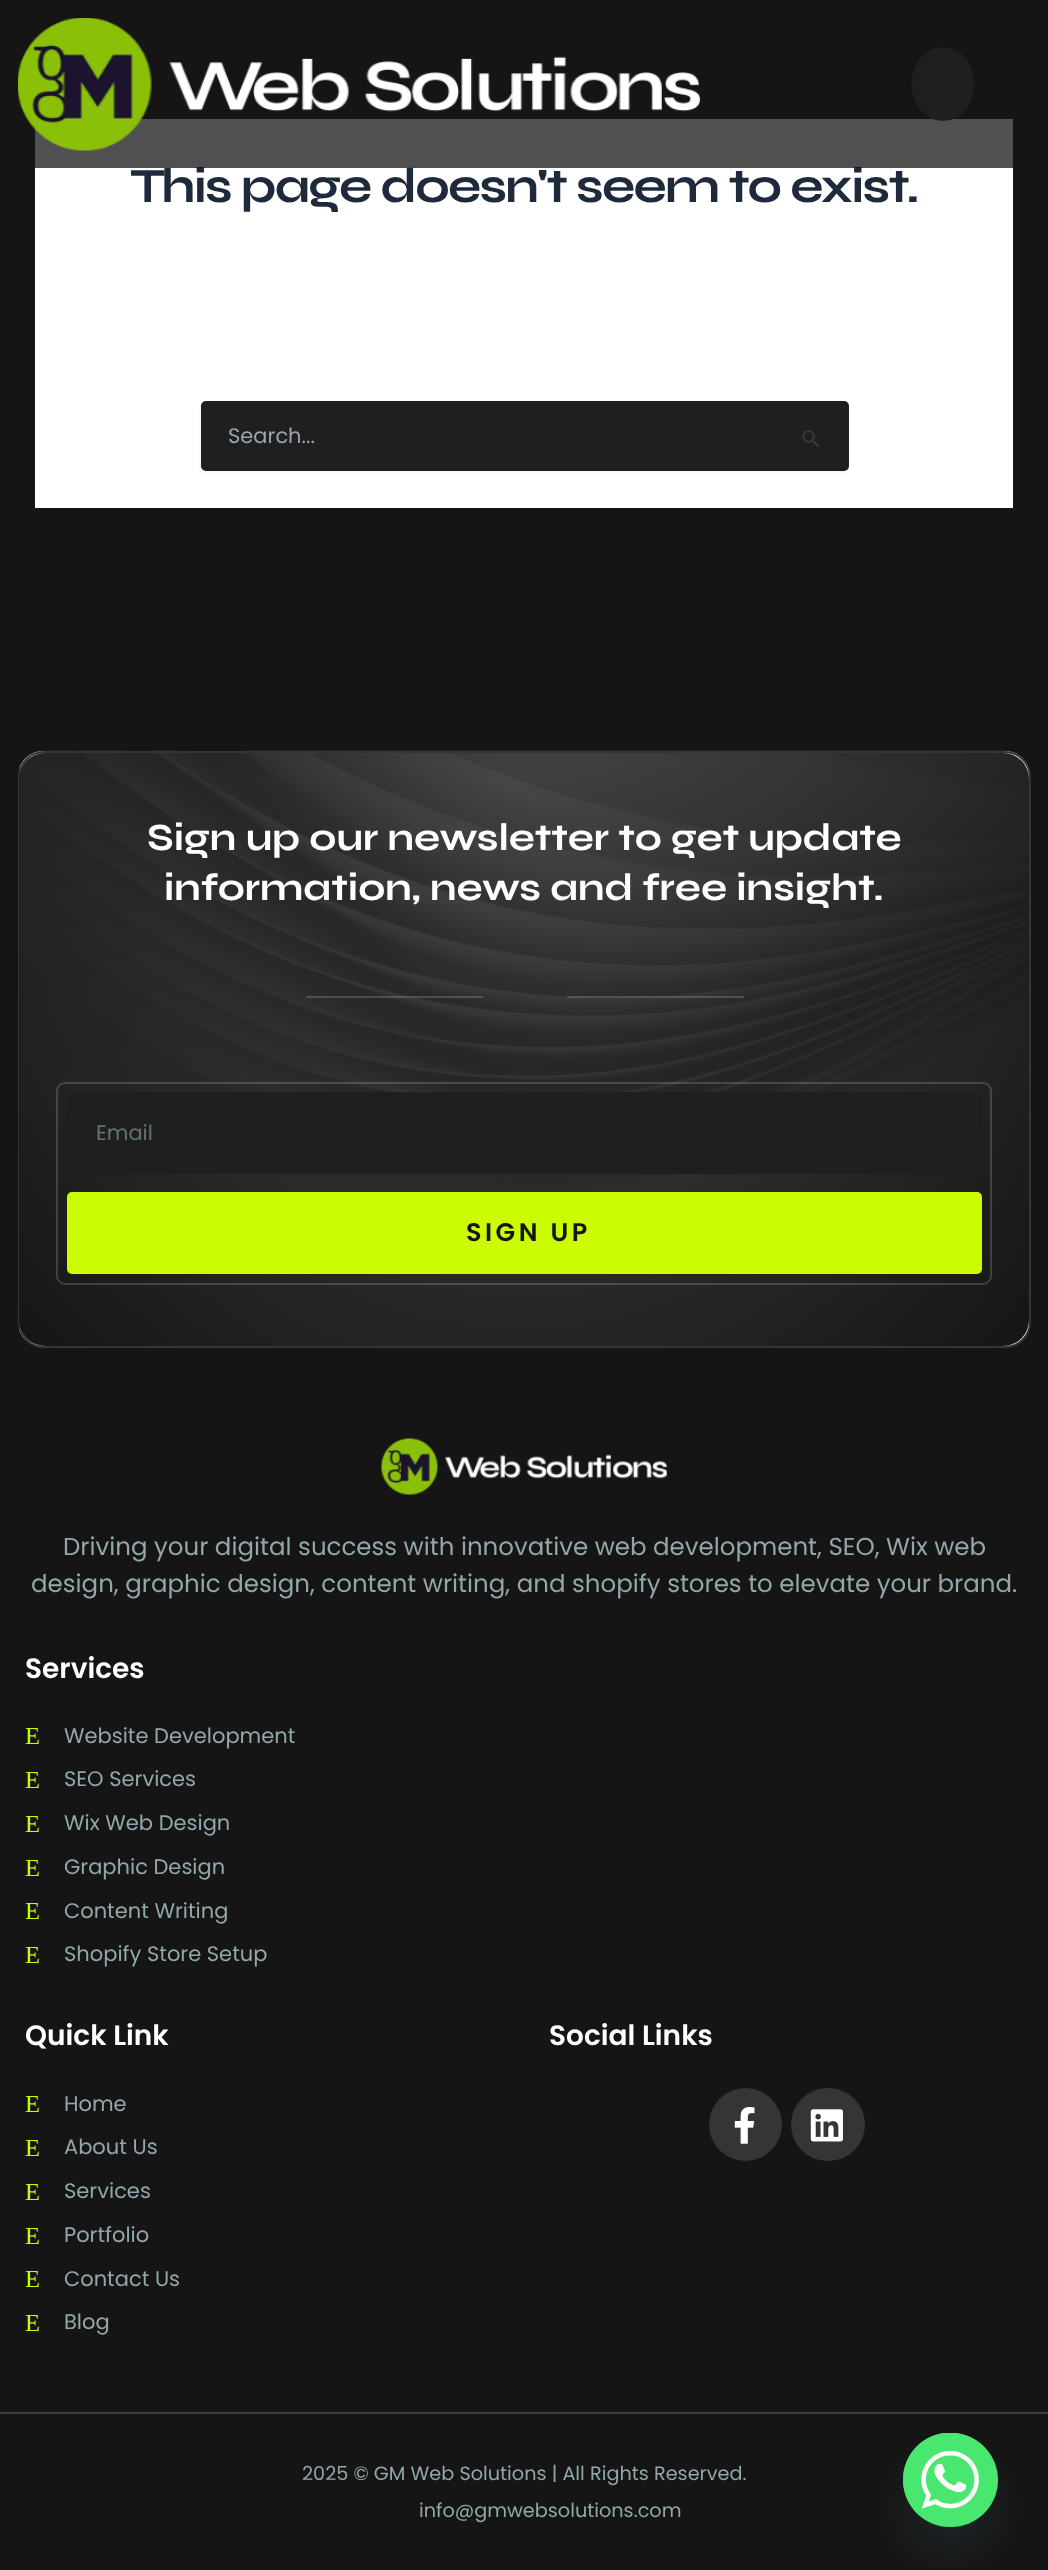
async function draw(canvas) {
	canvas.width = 1048;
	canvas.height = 2570;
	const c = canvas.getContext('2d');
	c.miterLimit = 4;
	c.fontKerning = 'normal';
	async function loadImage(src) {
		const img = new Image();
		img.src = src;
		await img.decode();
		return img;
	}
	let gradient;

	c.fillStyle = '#151515';
	c.fillRect(0, 0, 1048, 2570);
	c.fillStyle = '#fff';
	c.fillRect(35, 119, 978, 389);
	c.letterSpacing = '-1.75px';
	c.font = 'bold 49px Syne';
	c.fillStyle = '#1e293b';
	c.fillText('This page doesn\'t seem to exist.', 130, 202);
	c.fillStyle = '#151515bf';
	c.fillRect(35, 119, 978, 49);
	c.drawImage(await loadImage('img1.png'), 18, 18, 683, 133);
	c.fillStyle = '#1f1f1f';
	c.beginPath();
	c.ellipse(943, 84, 31.5, 37, 0, 0, 2 * Math.PI);
	c.fill();
	c.fillStyle = '#0000000d';
	c.filter = 'blur(2px)';
	c.beginPath();
	c.roundRect(201, 403, 648, 70, 5);
	c.fill();
	c.filter = 'none';
	c.fillStyle = '#1f1f1f';
	c.beginPath();
	c.roundRect(202, 402, 646, 68, 4);
	c.fill();
	c.strokeStyle = '#1f1f1f';
	c.lineWidth = 2;
	c.stroke();
	c.letterSpacing = '0px';
	c.font = '21px Poppins';
	c.fillStyle = '#9ca3af';
	c.fillText('Search...', 228, 443);
	c.drawImage(await loadImage('img2.png'), 802, 430, 17, 17);
	c.drawImage(await loadImage('img3.png'), 19, 750, 1010, 598);
	c.beginPath();
	c.roundRect(19, 752, 1011, 595, 25);
	c.strokeStyle = '#353535';
	c.stroke();
	gradient = c.createRadialGradient(524, 640.81, 0, 524, 640.81, 714);
	gradient.addColorStop(0, '#353535e6');
	gradient.addColorStop(1, '#151515');
	c.fillStyle = gradient;
	c.beginPath();
	c.roundRect(19, 753, 1010, 593, 26);
	c.save();
	c.clip();
	c.scale(1, 839 / 714);
	c.fillRect(0, 0, 1048, 2188);
	c.restore();
	c.font = 'bold 38.5px Syne';
	c.fillStyle = '#fff';
	c.fillText('Sign up our newsletter to get update', 147, 850);
	c.fillText('information, news and free insight.', 164, 900);
	c.fillStyle = '#ffffff2b';
	c.fillRect(306, 996, 177, 2);
	c.fillRect(567, 996, 177, 2);
	c.beginPath();
	c.roundRect(57, 1083, 934, 201, 8);
	c.strokeStyle = '#ffffff2b';
	c.stroke();
	c.fillStyle = '#1f1f1f';
	c.beginPath();
	c.roundRect(67, 1092, 915, 82, 5);
	c.fill();
	c.font = '21px Poppins';
	c.fillStyle = '#647172';
	c.fillText('Email', 96, 1140);
	c.fillStyle = '#cbfc02';
	c.beginPath();
	c.roundRect(67, 1192, 915, 82, 5);
	c.fill();
	c.letterSpacing = '3.5px';
	c.font = '600 25.5px Poppins';
	c.fillStyle = '#151515';
	c.fillText('SIGN UP', 466, 1241);
	c.fillStyle = '#3d3d3d';
	c.fillRect(0, 2412, 1048, 2);
	c.drawImage(await loadImage('img4.png'), 381, 1438, 286, 57);
	c.letterSpacing = '0px';
	c.font = '24.5px Poppins';
	c.fillStyle = '#92a7aa';
	c.fillText('Driving your digital success with innovative web development, SEO, Wix web', 63, 1555);
	c.fillText('design, graphic design, content writing, and shopify stores to elevate your brand.', 31, 1592);
	c.font = '600 28px Poppins';
	c.fillStyle = '#fff';
	c.fillText('Services', 25, 1678);
	c.font = '24.5px Liberation Serif';
	c.fillStyle = '#cbfc02';
	c.fillText('E', 25, 1744);
	c.font = '21px Poppins';
	c.fillStyle = '#92a7aa';
	c.fillText('Website Development', 64, 1743);
	c.font = '24.5px Liberation Serif';
	c.fillStyle = '#cbfc02';
	c.fillText('E', 25, 1788);
	c.font = '21px Poppins';
	c.fillStyle = '#92a7aa';
	c.fillText('SEO Services', 64, 1786);
	c.font = '24.5px Liberation Serif';
	c.fillStyle = '#cbfc02';
	c.fillText('E', 25, 1832);
	c.font = '21px Poppins';
	c.fillStyle = '#92a7aa';
	c.fillText('Wix Web Design', 64, 1830);
	c.font = '24.5px Liberation Serif';
	c.fillStyle = '#cbfc02';
	c.fillText('E', 25, 1876);
	c.font = '21px Poppins';
	c.fillStyle = '#92a7aa';
	c.fillText('Graphic Design', 64, 1874);
	c.font = '24.5px Liberation Serif';
	c.fillStyle = '#cbfc02';
	c.fillText('E', 25, 1919);
	c.font = '21px Poppins';
	c.fillStyle = '#92a7aa';
	c.fillText('Content Writing', 64, 1918);
	c.font = '24.5px Liberation Serif';
	c.fillStyle = '#cbfc02';
	c.fillText('E', 25, 1963);
	c.font = '21px Poppins';
	c.fillStyle = '#92a7aa';
	c.fillText('Shopify Store Setup', 64, 1961);
	c.font = '600 28px Poppins';
	c.fillStyle = '#fff';
	c.fillText('Quick Link', 25, 2045);
	c.font = '24.5px Liberation Serif';
	c.fillStyle = '#cbfc02';
	c.fillText('E', 25, 2112);
	c.font = '21px Poppins';
	c.fillStyle = '#92a7aa';
	c.fillText('Home', 64, 2111);
	c.font = '24.5px Liberation Serif';
	c.fillStyle = '#cbfc02';
	c.fillText('E', 25, 2156);
	c.font = '21px Poppins';
	c.fillStyle = '#92a7aa';
	c.fillText('About Us', 64, 2154);
	c.font = '24.5px Liberation Serif';
	c.fillStyle = '#cbfc02';
	c.fillText('E', 25, 2200);
	c.font = '21px Poppins';
	c.fillStyle = '#92a7aa';
	c.fillText('Services', 64, 2198);
	c.font = '24.5px Liberation Serif';
	c.fillStyle = '#cbfc02';
	c.fillText('E', 25, 2244);
	c.font = '21px Poppins';
	c.fillStyle = '#92a7aa';
	c.fillText('Portfolio', 64, 2242);
	c.font = '24.5px Liberation Serif';
	c.fillStyle = '#cbfc02';
	c.fillText('E', 25, 2287);
	c.font = '21px Poppins';
	c.fillStyle = '#92a7aa';
	c.fillText('Contact Us', 64, 2286);
	c.font = '24.5px Liberation Serif';
	c.fillStyle = '#cbfc02';
	c.fillText('E', 25, 2331);
	c.font = '21px Poppins';
	c.fillStyle = '#92a7aa';
	c.fillText('Blog', 64, 2329);
	c.font = '600 28px Poppins';
	c.fillStyle = '#fff';
	c.fillText('Social Links', 549, 2045);
	c.fillStyle = '#353535';
	c.beginPath();
	c.arc(745.5, 2124.5, 36.5, 0, 2 * Math.PI);
	c.fill();
	c.drawImage(await loadImage('img5.png'), 734, 2107, 21, 37);
	c.beginPath();
	c.roundRect(791, 2088, 74, 73, 36.5);
	c.fill();
	c.drawImage(await loadImage('img6.png'), 810, 2109, 33, 33);
	c.font = '19.25px Poppins';
	c.fillStyle = '#92a7aa';
	c.fillText('2025 © GM Web Solutions | All Rights Reserved.', 302, 2480);
	c.fillText('info@gmwebsolutions.com', 419, 2517);
	c.fillStyle = '#49687e29';
	c.filter = 'blur(21px)';
	c.beginPath();
	c.roundRect(903, 2461, 95, 94, 47);
	c.fill();
	c.filter = 'none';
	c.fillStyle = '#49e670';
	c.beginPath();
	c.roundRect(903, 2433, 95, 94, 47);
	c.fill();
	c.drawImage(await loadImage('img7.png'), 903, 2433, 89, 94);
}

draw(document.querySelector('canvas'));
